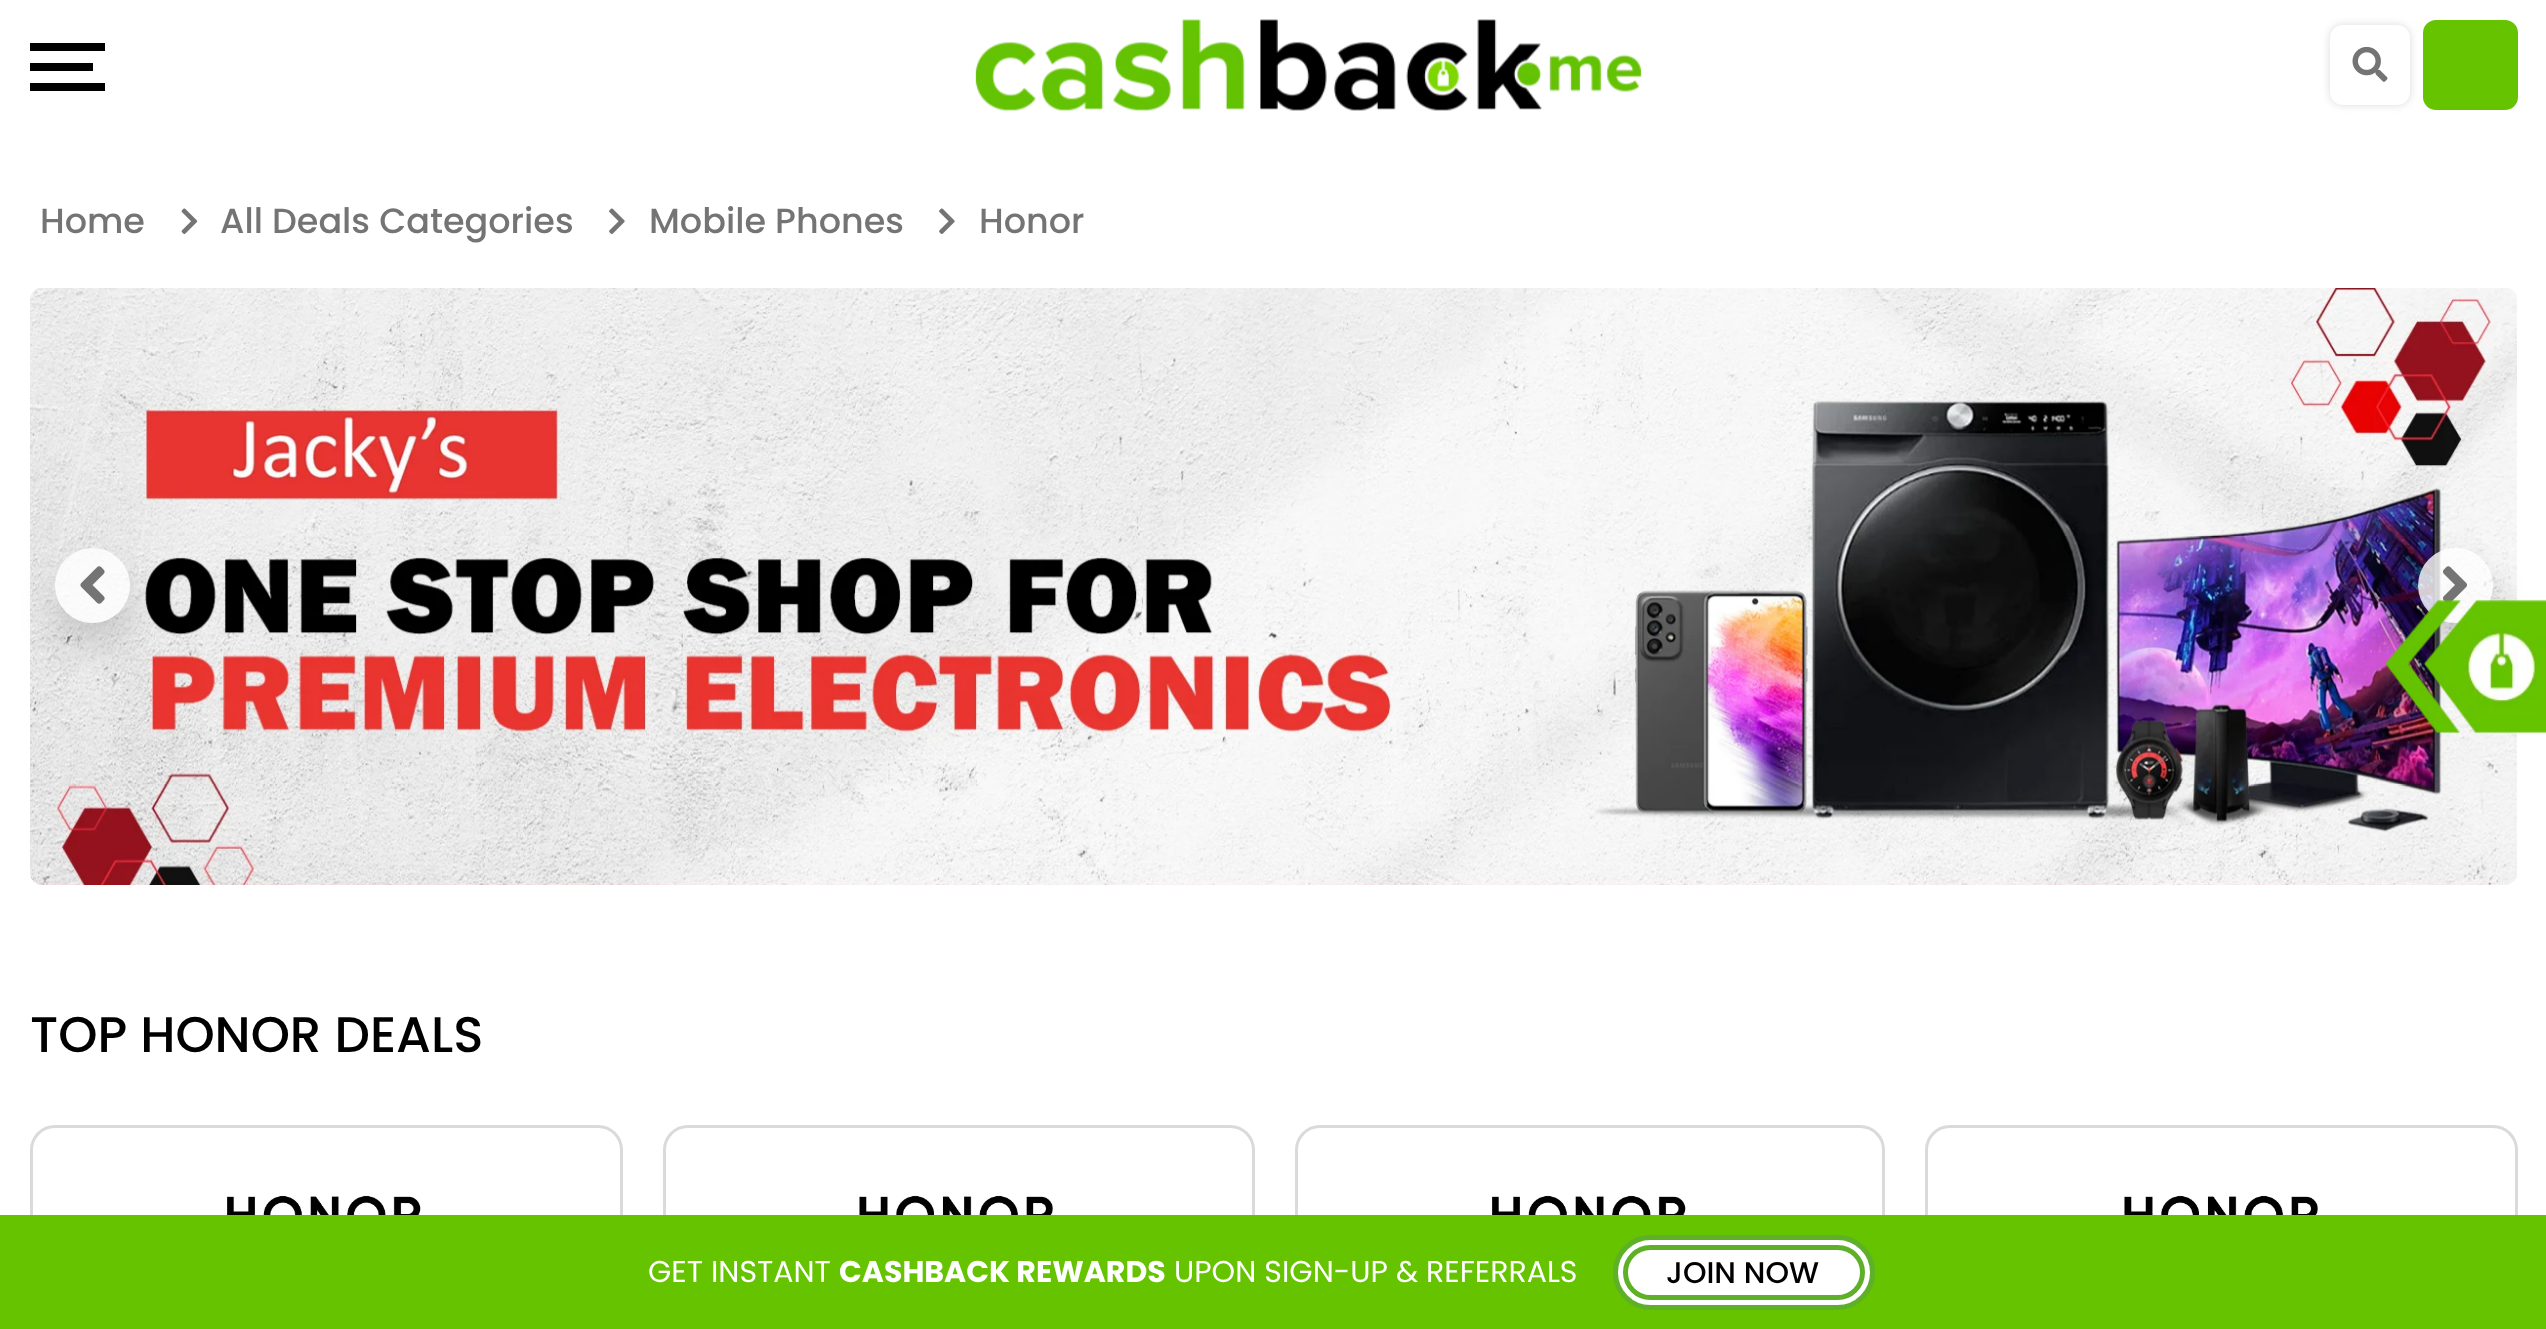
async function draw(canvas) {
	canvas.width = 2546;
	canvas.height = 1329;
	const c = canvas.getContext('2d');
	c.miterLimit = 4;
	c.fontKerning = 'normal';
	async function loadImage(src) {
		const img = new Image();
		img.src = src;
		await img.decode();
		return img;
	}

	c.fillStyle = '#fff';
	c.fillRect(0, 0, 2546, 1329);
	for (const [x, y, w, h, color] of [
		[30, 63, 63, 8, '#000'],
		[30, 43, 75, 8, '#000'],
		[30, 83, 75, 8, '#000'],
	]) {
		c.fillStyle = color;
		c.fillRect(x, y, w, h);
	}
	c.drawImage(await loadImage('img1.png'), 975, 19, 667, 92);
	c.fillStyle = '#dadada';
	c.filter = 'blur(4px)';
	c.beginPath();
	c.roundRect(2330, 25, 80, 80, 13);
	c.fill();
	c.filter = 'none';
	c.fillStyle = '#fff';
	c.beginPath();
	c.roundRect(2330, 25, 80, 80, 13);
	c.fill();
	c.drawImage(await loadImage('img2.png'), 2352, 46, 36, 36);
	c.fillStyle = '#65c300';
	c.beginPath();
	c.roundRect(2423, 20, 95, 90, 13);
	c.fill();
	c.font = '500 35px Poppins';
	c.fillStyle = '#747474';
	c.fillText('Home', 40, 233);
	c.drawImage(await loadImage('img3.png'), 181, 208, 17, 26);
	c.fillText('All Deals Categories', 220, 233);
	c.drawImage(await loadImage('img4.png'), 609, 208, 16, 26);
	c.fillText('Mobile Phones', 649, 233);
	c.drawImage(await loadImage('img4.png'), 939, 208, 16, 26);
	c.fillText('Honor', 979, 233);
	c.drawImage(await loadImage('img5.png'), 30, 288, 2487, 597);
	c.save();
	c.beginPath();
	c.moveTo(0, 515);
	c.lineTo(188, 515);
	c.lineTo(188, 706);
	c.lineTo(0, 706);
	c.closePath();
	c.moveTo(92.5, 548);
	c.bezierCurveTo(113, 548, 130, 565, 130, 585.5);
	c.bezierCurveTo(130, 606, 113, 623, 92.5, 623);
	c.bezierCurveTo(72, 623, 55, 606, 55, 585.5);
	c.bezierCurveTo(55, 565, 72, 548, 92.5, 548);
	c.closePath();
	c.clip('evenodd');
	c.fillStyle = '#00000026';
	c.filter = 'blur(19px)';
	c.beginPath();
	c.roundRect(55, 573, 75, 75, 37.5);
	c.fill();
	c.filter = 'none';
	c.restore();
	c.fillStyle = '#ffffffcc';
	c.beginPath();
	c.arc(92.5, 585.5, 37.5, 0, 2 * Math.PI);
	c.fill();
	c.drawImage(await loadImage('img6.png'), 80, 566, 25, 38);
	c.save();
	c.beginPath();
	c.moveTo(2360, 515);
	c.lineTo(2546, 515);
	c.lineTo(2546, 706);
	c.lineTo(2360, 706);
	c.closePath();
	c.moveTo(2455.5, 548);
	c.bezierCurveTo(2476, 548, 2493, 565, 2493, 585.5);
	c.bezierCurveTo(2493, 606, 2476, 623, 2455.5, 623);
	c.bezierCurveTo(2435, 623, 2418, 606, 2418, 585.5);
	c.bezierCurveTo(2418, 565, 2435, 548, 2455.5, 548);
	c.closePath();
	c.clip('evenodd');
	c.fillStyle = '#00000026';
	c.filter = 'blur(19px)';
	c.beginPath();
	c.roundRect(2418, 573, 75, 75, 37.5);
	c.fill();
	c.filter = 'none';
	c.restore();
	c.beginPath();
	c.arc(2455.5, 585.5, 37.5, 0, 2 * Math.PI);
	c.fill();
	c.drawImage(await loadImage('img7.png'), 2443, 566, 24, 37);
	c.font = '500 50px Poppins';
	c.fillStyle = '#000';
	c.fillText('TOP HONOR DEALS', 30, 1052);
	c.beginPath();
	c.roundRect(31.5, 1126.5, 590, 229, 23.5);
	c.strokeStyle = '#dadada';
	c.lineWidth = 3;
	c.stroke();
	c.drawImage(await loadImage('img8.png'), 227, 1195, 196, 20);
	c.beginPath();
	c.roundRect(664.5, 1126.5, 589, 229, 23.5);
	c.stroke();
	c.drawImage(await loadImage('img9.png'), 859, 1195, 197, 20);
	c.beginPath();
	c.roundRect(1296.5, 1126.5, 587, 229, 23.5);
	c.stroke();
	c.drawImage(await loadImage('img8.png'), 1492, 1195, 196, 20);
	c.beginPath();
	c.roundRect(1926.5, 1126.5, 590, 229, 23.5);
	c.stroke();
	c.drawImage(await loadImage('img10.png'), 2124, 1195, 197, 20);
	c.drawImage(await loadImage('img11.png'), 2385, 600, 161, 133);
	c.fillStyle = '#65c300';
	c.fillRect(0, 1215, 2546, 114);
	c.font = '30px Poppins';
	c.fillStyle = '#fff';
	c.fillText('GET INSTANT', 648, 1282);
	c.font = 'bold 30px Poppins';
	c.fillText('CASHBACK REWARDS', 839, 1282);
	c.font = '30px Poppins';
	c.fillText('UPON SIGN-UP & REFERRALS', 1174, 1282);
	c.beginPath();
	c.roundRect(1615.5, 1237.5, 257, 70, 35);
	c.fill();
	c.strokeStyle = '#5db027';
	c.lineWidth = 5;
	c.stroke();
	c.beginPath();
	c.roundRect(1625.5, 1247.5, 237, 50, 25);
	c.stroke();
	c.font = '500 30px Poppins';
	c.fillStyle = '#000';
	c.fillText('JOIN NOW', 1666, 1283);
}

draw(document.querySelector('canvas'));
